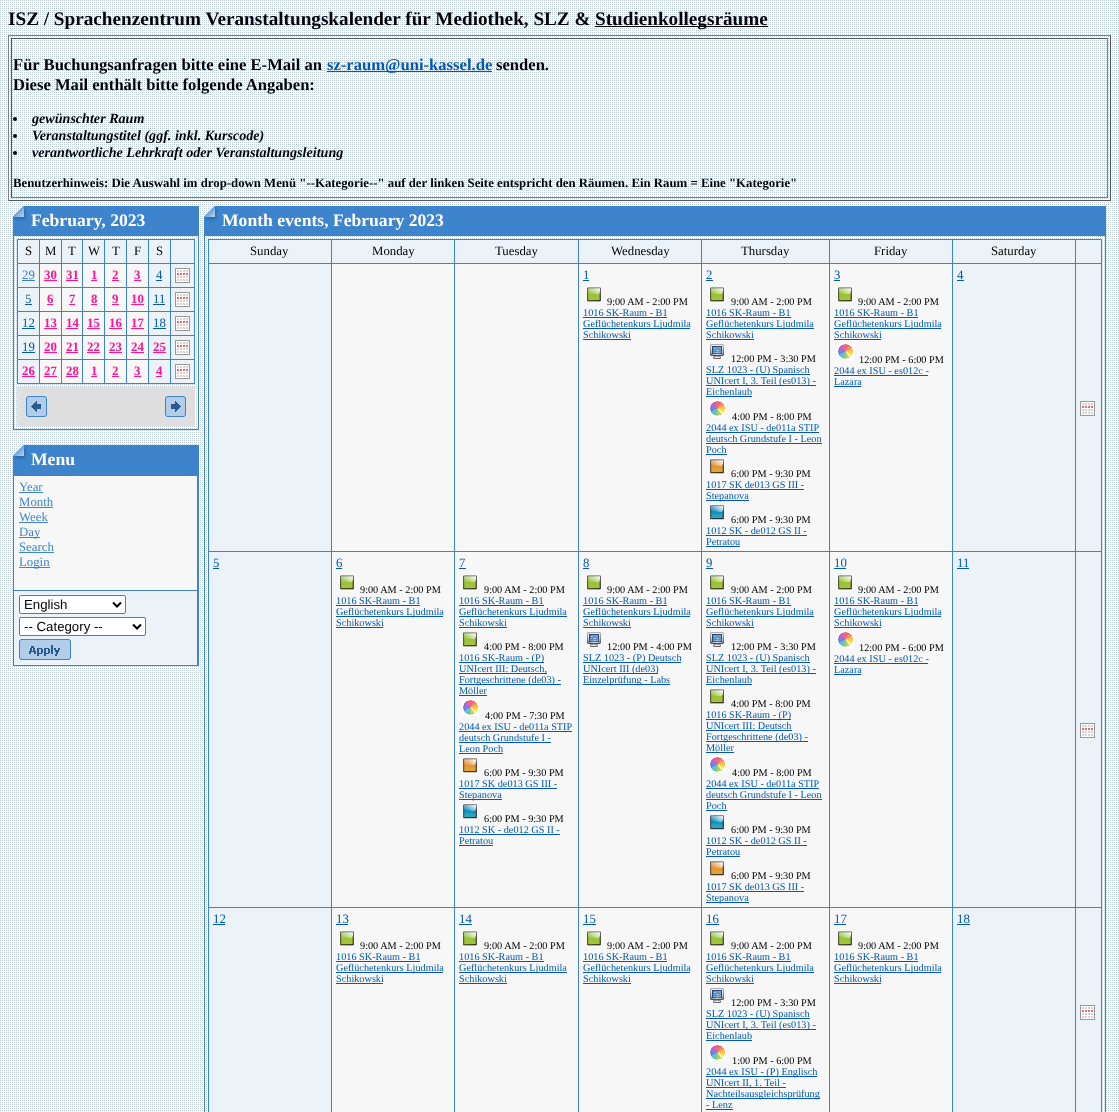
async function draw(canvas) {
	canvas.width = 1119;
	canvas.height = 1112;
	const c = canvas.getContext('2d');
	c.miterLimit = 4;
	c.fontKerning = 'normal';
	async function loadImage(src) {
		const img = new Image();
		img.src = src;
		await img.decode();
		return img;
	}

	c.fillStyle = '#fff';
	c.fillRect(0, 0, 1119, 1112);
	c.drawImage(await loadImage('img1.png'), 0, 0, 1119, 1111);
	c.font = 'bold 19.2px Liberation Serif';
	c.fillStyle = '#000';
	c.fillText('ISZ / Sprachenzentrum Veranstaltungskalender für Mediothek, SLZ &', 8, 25);
	c.fillRect(595, 26, 173, 1);
	c.fillText('Studienkollegsräume', 595, 25);
	for (const [x, y, w, h, color] of [
		[8, 35, 1103, 1, '#808080'],
		[1110, 35, 1, 166, '#555'],
		[8, 200, 1103, 1, '#555'],
		[8, 35, 1, 166, '#808080'],
		[11, 38, 1097, 1, '#555'],
		[1107, 38, 1, 160, '#808080'],
		[11, 197, 1097, 1, '#808080'],
		[11, 38, 1, 160, '#555'],
	]) {
		c.fillStyle = color;
		c.fillRect(x, y, w, h);
	}
	c.font = 'bold 16.6px Liberation Serif';
	c.fillStyle = '#000';
	c.fillText('Für Buchungsanfragen bitte eine E-Mail an', 13, 70);
	c.fillStyle = '#0059b2';
	c.fillRect(327, 71, 165, 1);
	c.fillText('sz-raum@uni-kassel.de', 327, 70);
	c.fillStyle = '#000';
	c.fillText('senden.', 496, 70);
	c.fillText('Diese Mail enthält bitte folgende Angaben:', 13, 90);
	c.beginPath();
	c.arc(15, 119, 2, 0, 2 * Math.PI);
	c.fill();
	c.font = 'italic bold 14.1px Liberation Serif';
	c.fillText('gewünschter Raum', 32, 123);
	c.beginPath();
	c.arc(15, 136, 2, 0, 2 * Math.PI);
	c.fill();
	c.fillText('Veranstaltungstitel (ggf. inkl. Kurscode)', 32, 140);
	c.beginPath();
	c.arc(15, 153, 2, 0, 2 * Math.PI);
	c.fill();
	c.fillText('verantwortliche Lehrkraft oder Veranstaltungsleitung', 32, 157);
	c.font = 'bold 12.8px Liberation Serif';
	c.fillText('Benutzerhinweis: Die Auswahl im drop-down Menü "--Kategorie--" auf der linken Seite entspricht den Räumen. Ein Raum = Eine "Kategorie"', 13, 187);
	c.drawImage(await loadImage('img2.png'), 13, 206, 14, 29);
	c.fillStyle = '#3d84cc';
	c.fillRect(27, 206, 158, 29);
	c.font = 'bold 17.6px Liberation Serif';
	c.fillStyle = '#fff';
	c.fillText('February, 2023', 31, 226);
	c.fillStyle = '#3d83cc';
	c.fillRect(185, 206, 14, 29);
	c.strokeStyle = '#3d84cc';
	c.strokeRect(13.5, 235.5, 185, 194);
	for (const [x, y, w, h, color] of [
		[17, 383, 178, 1, '#3d84cc'],
		[17, 239, 1, 145, '#3d84cc'],
		[18, 240, 21, 23, '#ebf2f8'],
		[18, 239, 177, 1, '#3d84cc'],
		[39, 239, 1, 24, '#3d84cc'],
	]) {
		c.fillStyle = color;
		c.fillRect(x, y, w, h);
	}
	c.font = '12.8px Liberation Serif';
	c.fillStyle = '#000';
	c.fillText('S', 25, 255);
	c.fillStyle = '#ebf2f8';
	c.fillRect(40, 240, 21, 23);
	c.fillStyle = '#3d84cc';
	c.fillRect(61, 239, 1, 24);
	c.fillStyle = '#000';
	c.fillText('M', 45, 255);
	c.fillStyle = '#ebf2f8';
	c.fillRect(62, 240, 20, 23);
	c.fillStyle = '#3d84cc';
	c.fillRect(82, 239, 1, 24);
	c.fillStyle = '#000';
	c.fillText('T', 68, 255);
	c.fillStyle = '#ebf2f8';
	c.fillRect(83, 240, 21, 23);
	c.fillStyle = '#3d84cc';
	c.fillRect(104, 239, 1, 24);
	c.fillStyle = '#000';
	c.fillText('W', 88, 255);
	c.fillStyle = '#ebf2f8';
	c.fillRect(105, 240, 21, 23);
	c.fillStyle = '#3d84cc';
	c.fillRect(126, 239, 1, 24);
	c.fillStyle = '#000';
	c.fillText('T', 112, 255);
	c.fillStyle = '#ebf2f8';
	c.fillRect(127, 240, 21, 23);
	c.fillStyle = '#3d84cc';
	c.fillRect(148, 239, 1, 24);
	c.fillStyle = '#000';
	c.fillText('F', 134, 255);
	c.fillStyle = '#ebf2f8';
	c.fillRect(149, 240, 21, 23);
	c.fillStyle = '#3d84cc';
	c.fillRect(170, 239, 1, 24);
	c.fillStyle = '#000';
	c.fillText('S', 156, 255);
	for (const [x, y, w, h, color] of [
		[171, 240, 23, 23, '#ebf2f8'],
		[194, 239, 1, 24, '#3d84cc'],
		[18, 264, 21, 23, '#ebf2f8'],
		[18, 263, 177, 1, '#3d84cc'],
		[39, 263, 1, 24, '#3d84cc'],
	]) {
		c.fillStyle = color;
		c.fillRect(x, y, w, h);
	}
	c.fillText('29', 22, 279);
	for (const [x, y, w, h, color] of [
		[22, 280, 13, 1, '#3d84cc'],
		[40, 264, 21, 23, '#f7f7f7'],
		[61, 263, 1, 24, '#3d84cc'],
	]) {
		c.fillStyle = color;
		c.fillRect(x, y, w, h);
	}
	c.font = 'bold 12.8px Liberation Serif';
	c.fillStyle = '#ff1493';
	c.fillText('30', 44, 279);
	for (const [x, y, w, h, color] of [
		[44, 280, 13, 1, '#ff1493'],
		[62, 264, 20, 23, '#f7f7f7'],
		[82, 263, 1, 24, '#3d84cc'],
	]) {
		c.fillStyle = color;
		c.fillRect(x, y, w, h);
	}
	c.fillStyle = '#ff1493';
	c.fillText('31', 66, 279);
	for (const [x, y, w, h, color] of [
		[66, 280, 12, 1, '#ff1493'],
		[83, 264, 21, 23, '#f7f7f7'],
		[104, 263, 1, 24, '#3d84cc'],
	]) {
		c.fillStyle = color;
		c.fillRect(x, y, w, h);
	}
	c.fillStyle = '#ff1493';
	c.fillText('1', 91, 279);
	for (const [x, y, w, h, color] of [
		[91, 280, 6, 1, '#ff1493'],
		[105, 264, 21, 23, '#f7f7f7'],
		[126, 263, 1, 24, '#3d84cc'],
	]) {
		c.fillStyle = color;
		c.fillRect(x, y, w, h);
	}
	c.fillStyle = '#ff1493';
	c.fillText('2', 112, 279);
	for (const [x, y, w, h, color] of [
		[112, 280, 7, 1, '#ff1493'],
		[127, 264, 21, 23, '#f7f7f7'],
		[148, 263, 1, 24, '#3d84cc'],
	]) {
		c.fillStyle = color;
		c.fillRect(x, y, w, h);
	}
	c.fillStyle = '#ff1493';
	c.fillText('3', 134, 279);
	for (const [x, y, w, h, color] of [
		[134, 280, 7, 1, '#ff1493'],
		[149, 264, 21, 23, '#ebf2f8'],
		[170, 263, 1, 24, '#3d84cc'],
	]) {
		c.fillStyle = color;
		c.fillRect(x, y, w, h);
	}
	c.font = '12.8px Liberation Serif';
	c.fillStyle = '#0059b2';
	c.fillText('4', 156, 279);
	for (const [x, y, w, h, color] of [
		[156, 280, 6, 1, '#0059b2'],
		[171, 264, 23, 23, '#ebf2f8'],
		[194, 263, 1, 24, '#3d84cc'],
	]) {
		c.fillStyle = color;
		c.fillRect(x, y, w, h);
	}
	c.drawImage(await loadImage('img3.png'), 175, 268, 15, 15);
	for (const [x, y, w, h, color] of [
		[18, 288, 21, 23, '#ebf2f8'],
		[18, 287, 177, 1, '#3d84cc'],
		[39, 287, 1, 24, '#3d84cc'],
	]) {
		c.fillStyle = color;
		c.fillRect(x, y, w, h);
	}
	c.fillStyle = '#0059b2';
	c.fillText('5', 25, 303);
	for (const [x, y, w, h, color] of [
		[25, 304, 7, 1, '#0059b2'],
		[40, 288, 21, 23, '#f7f7f7'],
		[61, 287, 1, 24, '#3d84cc'],
	]) {
		c.fillStyle = color;
		c.fillRect(x, y, w, h);
	}
	c.font = 'bold 12.8px Liberation Serif';
	c.fillStyle = '#ff1493';
	c.fillText('6', 47, 303);
	for (const [x, y, w, h, color] of [
		[47, 304, 6, 1, '#ff1493'],
		[62, 288, 20, 23, '#f7f7f7'],
		[82, 287, 1, 24, '#3d84cc'],
	]) {
		c.fillStyle = color;
		c.fillRect(x, y, w, h);
	}
	c.fillStyle = '#ff1493';
	c.fillText('7', 69, 303);
	for (const [x, y, w, h, color] of [
		[69, 304, 6, 1, '#ff1493'],
		[83, 288, 21, 23, '#f7f7f7'],
		[104, 287, 1, 24, '#3d84cc'],
	]) {
		c.fillStyle = color;
		c.fillRect(x, y, w, h);
	}
	c.fillStyle = '#ff1493';
	c.fillText('8', 91, 303);
	for (const [x, y, w, h, color] of [
		[91, 304, 6, 1, '#ff1493'],
		[105, 288, 21, 23, '#f7f7f7'],
		[126, 287, 1, 24, '#3d84cc'],
	]) {
		c.fillStyle = color;
		c.fillRect(x, y, w, h);
	}
	c.fillStyle = '#ff1493';
	c.fillText('9', 112, 303);
	for (const [x, y, w, h, color] of [
		[112, 304, 7, 1, '#ff1493'],
		[127, 288, 21, 23, '#f7f7f7'],
		[148, 287, 1, 24, '#3d84cc'],
	]) {
		c.fillStyle = color;
		c.fillRect(x, y, w, h);
	}
	c.fillStyle = '#ff1493';
	c.fillText('10', 131, 303);
	for (const [x, y, w, h, color] of [
		[131, 304, 13, 1, '#ff1493'],
		[149, 288, 21, 23, '#ebf2f8'],
		[170, 287, 1, 24, '#3d84cc'],
	]) {
		c.fillStyle = color;
		c.fillRect(x, y, w, h);
	}
	c.font = '12.8px Liberation Serif';
	c.fillStyle = '#0059b2';
	c.fillText('11', 153, 303);
	for (const [x, y, w, h, color] of [
		[153, 304, 12, 1, '#0059b2'],
		[171, 288, 23, 23, '#ebf2f8'],
		[194, 287, 1, 24, '#3d84cc'],
	]) {
		c.fillStyle = color;
		c.fillRect(x, y, w, h);
	}
	c.drawImage(await loadImage('img3.png'), 175, 292, 15, 15);
	for (const [x, y, w, h, color] of [
		[18, 312, 21, 23, '#ebf2f8'],
		[18, 311, 177, 1, '#3d84cc'],
		[39, 311, 1, 24, '#3d84cc'],
	]) {
		c.fillStyle = color;
		c.fillRect(x, y, w, h);
	}
	c.fillStyle = '#0059b2';
	c.fillText('12', 22, 327);
	for (const [x, y, w, h, color] of [
		[22, 328, 13, 1, '#0059b2'],
		[40, 312, 21, 23, '#f7f7f7'],
		[61, 311, 1, 24, '#3d84cc'],
	]) {
		c.fillStyle = color;
		c.fillRect(x, y, w, h);
	}
	c.font = 'bold 12.8px Liberation Serif';
	c.fillStyle = '#ff1493';
	c.fillText('13', 44, 327);
	for (const [x, y, w, h, color] of [
		[44, 328, 13, 1, '#ff1493'],
		[62, 312, 20, 23, '#f7f7f7'],
		[82, 311, 1, 24, '#3d84cc'],
	]) {
		c.fillStyle = color;
		c.fillRect(x, y, w, h);
	}
	c.fillStyle = '#ff1493';
	c.fillText('14', 66, 327);
	for (const [x, y, w, h, color] of [
		[66, 328, 12, 1, '#ff1493'],
		[83, 312, 21, 23, '#f7f7f7'],
		[104, 311, 1, 24, '#3d84cc'],
	]) {
		c.fillStyle = color;
		c.fillRect(x, y, w, h);
	}
	c.fillStyle = '#ff1493';
	c.fillText('15', 87, 327);
	for (const [x, y, w, h, color] of [
		[87, 328, 13, 1, '#ff1493'],
		[105, 312, 21, 23, '#f7f7f7'],
		[126, 311, 1, 24, '#3d84cc'],
	]) {
		c.fillStyle = color;
		c.fillRect(x, y, w, h);
	}
	c.fillStyle = '#ff1493';
	c.fillText('16', 109, 327);
	for (const [x, y, w, h, color] of [
		[109, 328, 13, 1, '#ff1493'],
		[127, 312, 21, 23, '#f7f7f7'],
		[148, 311, 1, 24, '#3d84cc'],
	]) {
		c.fillStyle = color;
		c.fillRect(x, y, w, h);
	}
	c.fillStyle = '#ff1493';
	c.fillText('17', 131, 327);
	for (const [x, y, w, h, color] of [
		[131, 328, 13, 1, '#ff1493'],
		[149, 312, 21, 23, '#ebf2f8'],
		[170, 311, 1, 24, '#3d84cc'],
	]) {
		c.fillStyle = color;
		c.fillRect(x, y, w, h);
	}
	c.font = '12.8px Liberation Serif';
	c.fillStyle = '#0059b2';
	c.fillText('18', 153, 327);
	for (const [x, y, w, h, color] of [
		[153, 328, 13, 1, '#0059b2'],
		[171, 312, 23, 23, '#ebf2f8'],
		[194, 311, 1, 24, '#3d84cc'],
	]) {
		c.fillStyle = color;
		c.fillRect(x, y, w, h);
	}
	c.drawImage(await loadImage('img3.png'), 175, 316, 15, 15);
	for (const [x, y, w, h, color] of [
		[18, 336, 21, 23, '#ebf2f8'],
		[18, 335, 177, 1, '#3d84cc'],
		[39, 335, 1, 24, '#3d84cc'],
	]) {
		c.fillStyle = color;
		c.fillRect(x, y, w, h);
	}
	c.fillStyle = '#0059b2';
	c.fillText('19', 22, 351);
	for (const [x, y, w, h, color] of [
		[22, 352, 13, 1, '#0059b2'],
		[40, 336, 21, 23, '#f7f7f7'],
		[61, 335, 1, 24, '#3d84cc'],
	]) {
		c.fillStyle = color;
		c.fillRect(x, y, w, h);
	}
	c.font = 'bold 12.8px Liberation Serif';
	c.fillStyle = '#ff1493';
	c.fillText('20', 44, 351);
	for (const [x, y, w, h, color] of [
		[44, 352, 13, 1, '#ff1493'],
		[62, 336, 20, 23, '#f7f7f7'],
		[82, 335, 1, 24, '#3d84cc'],
	]) {
		c.fillStyle = color;
		c.fillRect(x, y, w, h);
	}
	c.fillStyle = '#ff1493';
	c.fillText('21', 66, 351);
	for (const [x, y, w, h, color] of [
		[66, 352, 12, 1, '#ff1493'],
		[83, 336, 21, 23, '#f7f7f7'],
		[104, 335, 1, 24, '#3d84cc'],
	]) {
		c.fillStyle = color;
		c.fillRect(x, y, w, h);
	}
	c.fillStyle = '#ff1493';
	c.fillText('22', 87, 351);
	for (const [x, y, w, h, color] of [
		[87, 352, 13, 1, '#ff1493'],
		[105, 336, 21, 23, '#f7f7f7'],
		[126, 335, 1, 24, '#3d84cc'],
	]) {
		c.fillStyle = color;
		c.fillRect(x, y, w, h);
	}
	c.fillStyle = '#ff1493';
	c.fillText('23', 109, 351);
	for (const [x, y, w, h, color] of [
		[109, 352, 13, 1, '#ff1493'],
		[127, 336, 21, 23, '#f7f7f7'],
		[148, 335, 1, 24, '#3d84cc'],
	]) {
		c.fillStyle = color;
		c.fillRect(x, y, w, h);
	}
	c.fillStyle = '#ff1493';
	c.fillText('24', 131, 351);
	for (const [x, y, w, h, color] of [
		[131, 352, 13, 1, '#ff1493'],
		[149, 336, 21, 23, '#ebf2f8'],
		[170, 335, 1, 24, '#3d84cc'],
	]) {
		c.fillStyle = color;
		c.fillRect(x, y, w, h);
	}
	c.fillStyle = '#ff1493';
	c.fillText('25', 153, 351);
	for (const [x, y, w, h, color] of [
		[153, 352, 13, 1, '#ff1493'],
		[171, 336, 23, 23, '#ebf2f8'],
		[194, 335, 1, 24, '#3d84cc'],
	]) {
		c.fillStyle = color;
		c.fillRect(x, y, w, h);
	}
	c.drawImage(await loadImage('img3.png'), 175, 340, 15, 15);
	for (const [x, y, w, h, color] of [
		[18, 360, 21, 23, '#ebf2f8'],
		[18, 359, 177, 1, '#3d84cc'],
		[39, 359, 1, 24, '#3d84cc'],
	]) {
		c.fillStyle = color;
		c.fillRect(x, y, w, h);
	}
	c.fillStyle = '#ff1493';
	c.fillText('26', 22, 375);
	for (const [x, y, w, h, color] of [
		[22, 376, 13, 1, '#ff1493'],
		[40, 360, 21, 23, '#f7f7f7'],
		[61, 359, 1, 24, '#3d84cc'],
	]) {
		c.fillStyle = color;
		c.fillRect(x, y, w, h);
	}
	c.fillStyle = '#ff1493';
	c.fillText('27', 44, 375);
	for (const [x, y, w, h, color] of [
		[44, 376, 13, 1, '#ff1493'],
		[62, 360, 20, 23, '#f7f7f7'],
		[82, 359, 1, 24, '#3d84cc'],
	]) {
		c.fillStyle = color;
		c.fillRect(x, y, w, h);
	}
	c.fillStyle = '#ff1493';
	c.fillText('28', 66, 375);
	for (const [x, y, w, h, color] of [
		[66, 376, 12, 1, '#ff1493'],
		[83, 360, 21, 23, '#f7f7f7'],
		[104, 359, 1, 24, '#3d84cc'],
	]) {
		c.fillStyle = color;
		c.fillRect(x, y, w, h);
	}
	c.fillStyle = '#ff1493';
	c.fillText('1', 91, 375);
	for (const [x, y, w, h, color] of [
		[91, 376, 6, 1, '#ff1493'],
		[105, 360, 21, 23, '#f7f7f7'],
		[126, 359, 1, 24, '#3d84cc'],
	]) {
		c.fillStyle = color;
		c.fillRect(x, y, w, h);
	}
	c.fillStyle = '#ff1493';
	c.fillText('2', 112, 375);
	for (const [x, y, w, h, color] of [
		[112, 376, 7, 1, '#ff1493'],
		[127, 360, 21, 23, '#f7f7f7'],
		[148, 359, 1, 24, '#3d84cc'],
	]) {
		c.fillStyle = color;
		c.fillRect(x, y, w, h);
	}
	c.fillStyle = '#ff1493';
	c.fillText('3', 134, 375);
	for (const [x, y, w, h, color] of [
		[134, 376, 7, 1, '#ff1493'],
		[149, 360, 21, 23, '#ebf2f8'],
		[170, 359, 1, 24, '#3d84cc'],
	]) {
		c.fillStyle = color;
		c.fillRect(x, y, w, h);
	}
	c.fillStyle = '#ff1493';
	c.fillText('4', 156, 375);
	for (const [x, y, w, h, color] of [
		[156, 376, 6, 1, '#ff1493'],
		[171, 360, 23, 23, '#ebf2f8'],
		[194, 359, 1, 24, '#3d84cc'],
	]) {
		c.fillStyle = color;
		c.fillRect(x, y, w, h);
	}
	c.drawImage(await loadImage('img3.png'), 175, 364, 15, 15);
	c.fillStyle = '#dfdfdf';
	c.fillRect(17, 387, 178, 39);
	c.drawImage(await loadImage('img4.png'), 26, 396, 21, 21);
	c.drawImage(await loadImage('img5.png'), 165, 396, 21, 21);
	c.drawImage(await loadImage('img6.png'), 13, 445, 14, 29);
	c.fillStyle = '#3d84cc';
	c.fillRect(27, 445, 158, 29);
	c.font = 'bold 17.6px Liberation Serif';
	c.fillStyle = '#fff';
	c.fillText('Menu', 31, 465);
	c.fillStyle = '#3d83cc';
	c.fillRect(185, 445, 14, 29);
	c.strokeRect(13.5, 474.5, 185, 191);
	for (const [x, y, w, h, color] of [
		[14, 476, 183, 114, '#f7f7f7'],
		[14, 475, 184, 1, '#3d84cc'],
		[197, 475, 1, 115, '#3d84cc'],
	]) {
		c.fillStyle = color;
		c.fillRect(x, y, w, h);
	}
	c.font = '12.8px Liberation Serif';
	c.fillText('Year', 19, 491);
	c.fillRect(19, 492, 24, 1);
	c.fillText('Month', 19, 506);
	c.fillRect(19, 507, 34, 1);
	c.fillText('Week', 19, 521);
	c.fillRect(19, 522, 29, 1);
	c.fillRect(19, 537, 21, 1);
	c.fillText('Day', 19, 536);
	c.fillText('Search', 19, 551);
	c.fillRect(19, 552, 35, 1);
	c.fillRect(19, 567, 31, 1);
	c.fillText('Login', 19, 566);
	for (const [x, y, w, h, color] of [
		[14, 591, 183, 74, '#ebf2f8'],
		[14, 590, 184, 1, '#3d84cc'],
		[197, 590, 1, 75, '#3d84cc'],
	]) {
		c.fillStyle = color;
		c.fillRect(x, y, w, h);
	}
	c.fillStyle = '#fff';
	c.beginPath();
	c.roundRect(19.5, 595.5, 106, 18, 1.5);
	c.fill();
	c.strokeStyle = '#767676';
	c.stroke();
	c.beginPath();
	c.moveTo(113, 602.5);
	c.lineTo(117, 606.5);
	c.lineTo(121, 602.5);
	c.strokeStyle = '#000';
	c.lineWidth = 2;
	c.stroke();
	c.font = '13.25px Liberation Sans';
	c.fillStyle = '#000';
	c.fillText('English', 24, 609);
	c.fillStyle = '#fff';
	c.beginPath();
	c.roundRect(19.5, 617.5, 126, 18, 1.5);
	c.fill();
	c.strokeStyle = '#767676';
	c.lineWidth = 1;
	c.stroke();
	c.beginPath();
	c.moveTo(133, 624.5);
	c.lineTo(137, 628.5);
	c.lineTo(141, 624.5);
	c.strokeStyle = '#000';
	c.lineWidth = 2;
	c.stroke();
	c.fillStyle = '#000';
	c.fillText('-- Category --', 24, 631);
	c.drawImage(await loadImage('img7.png'), 19, 639, 52, 21);
	c.drawImage(await loadImage('img8.png'), 204, 206, 14, 29);
	c.fillStyle = '#3d84cc';
	c.fillRect(218, 206, 874, 29);
	c.font = 'bold 17.6px Liberation Serif';
	c.fillStyle = '#fff';
	c.fillText('Month events, February 2023', 222, 226);
	c.fillStyle = '#3d83cc';
	c.fillRect(1092, 206, 14, 29);
	c.strokeStyle = '#3d84cc';
	c.lineWidth = 1;
	c.strokeRect(204.5, 235.5, 901, 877);
	for (const [x, y, w, h, color] of [
		[208, 239, 1, 873, '#3d84cc'],
		[209, 240, 122, 23, '#ebf2f8'],
		[209, 239, 893, 1, '#3d84cc'],
		[331, 239, 1, 24, '#3d84cc'],
	]) {
		c.fillStyle = color;
		c.fillRect(x, y, w, h);
	}
	c.font = '12.8px Liberation Serif';
	c.fillStyle = '#000';
	c.fillText('Sunday', 250, 255);
	c.fillStyle = '#ebf2f8';
	c.fillRect(332, 240, 122, 23);
	c.fillStyle = '#3d84cc';
	c.fillRect(454, 239, 1, 24);
	c.fillStyle = '#000';
	c.fillText('Monday', 372, 255);
	c.fillStyle = '#ebf2f8';
	c.fillRect(455, 240, 123, 23);
	c.fillStyle = '#3d84cc';
	c.fillRect(578, 239, 1, 24);
	c.fillStyle = '#000';
	c.fillText('Tuesday', 495, 255);
	c.fillStyle = '#ebf2f8';
	c.fillRect(579, 240, 122, 23);
	c.fillStyle = '#3d84cc';
	c.fillRect(701, 239, 1, 24);
	c.fillStyle = '#000';
	c.fillText('Wednesday', 611, 255);
	c.fillStyle = '#ebf2f8';
	c.fillRect(702, 240, 127, 23);
	c.fillStyle = '#3d84cc';
	c.fillRect(829, 239, 1, 24);
	c.fillStyle = '#000';
	c.fillText('Thursday', 741, 255);
	c.fillStyle = '#ebf2f8';
	c.fillRect(830, 240, 122, 23);
	c.fillStyle = '#3d84cc';
	c.fillRect(952, 239, 1, 24);
	c.fillStyle = '#000';
	c.fillText('Friday', 874, 255);
	c.fillStyle = '#ebf2f8';
	c.fillRect(953, 240, 122, 23);
	c.fillStyle = '#3d84cc';
	c.fillRect(1075, 239, 1, 24);
	c.fillStyle = '#000';
	c.fillText('Saturday', 991, 255);
	for (const [x, y, w, h, color] of [
		[1076, 240, 25, 23, '#ebf2f8'],
		[1101, 239, 1, 24, '#3d84cc'],
		[209, 264, 122, 287, '#ebf2f8'],
		[209, 263, 893, 1, '#3d84cc'],
		[331, 263, 1, 288, '#3d84cc'],
		[332, 264, 122, 287, '#f7f7f7'],
		[454, 263, 1, 288, '#3d84cc'],
		[455, 264, 123, 287, '#f7f7f7'],
		[578, 263, 1, 288, '#3d84cc'],
		[579, 264, 122, 287, '#f7f7f7'],
		[701, 263, 1, 288, '#3d84cc'],
	]) {
		c.fillStyle = color;
		c.fillRect(x, y, w, h);
	}
	c.fillStyle = '#0059b2';
	c.fillText('1', 583, 279);
	c.fillRect(583, 280, 6, 1);
	c.drawImage(await loadImage('img9.png'), 587, 287, 14, 15);
	c.font = '10.25px Liberation Serif';
	c.fillStyle = '#000';
	c.fillText('9:00 AM - 2:00 PM', 607, 305);
	c.fillStyle = '#0059b2';
	c.fillText('1016 SK-Raum - B1', 583, 316);
	c.fillRect(583, 317, 84, 1);
	c.fillRect(583, 328, 107, 1);
	c.fillText('Geflüchetenkurs Ljudmila', 583, 327);
	c.fillText('Schikowski', 583, 338);
	for (const [x, y, w, h, color] of [
		[583, 339, 48, 1, '#0059b2'],
		[702, 264, 127, 287, '#f7f7f7'],
		[829, 263, 1, 288, '#3d84cc'],
	]) {
		c.fillStyle = color;
		c.fillRect(x, y, w, h);
	}
	c.font = '12.8px Liberation Serif';
	c.fillStyle = '#0059b2';
	c.fillText('2', 706, 279);
	c.fillRect(706, 280, 7, 1);
	c.drawImage(await loadImage('img9.png'), 710, 287, 14, 15);
	c.font = '10.25px Liberation Serif';
	c.fillStyle = '#000';
	c.fillText('9:00 AM - 2:00 PM', 731, 305);
	c.fillStyle = '#0059b2';
	c.fillText('1016 SK-Raum - B1', 706, 316);
	c.fillRect(706, 317, 85, 1);
	c.fillRect(706, 328, 108, 1);
	c.fillText('Geflüchetenkurs Ljudmila', 706, 327);
	c.fillText('Schikowski', 706, 338);
	c.fillRect(706, 339, 48, 1);
	c.drawImage(await loadImage('img10.png'), 710, 344, 14, 15);
	c.fillStyle = '#000';
	c.fillText('12:00 PM - 3:30 PM', 731, 362);
	c.fillStyle = '#0059b2';
	c.fillRect(706, 374, 104, 1);
	c.fillText('SLZ 1023 - (U) Spanisch', 706, 373);
	c.fillRect(706, 385, 110, 1);
	c.fillText('UNIcert I, 3. Teil (es013) -', 706, 384);
	c.fillText('Eichenlaub', 706, 395);
	c.fillRect(706, 396, 46, 1);
	c.drawImage(await loadImage('img11.png'), 709, 400, 17, 17);
	c.fillStyle = '#000';
	c.fillText('4:00 PM - 8:00 PM', 732, 420);
	c.fillStyle = '#0059b2';
	c.fillText('2044 ex ISU - de011a STIP', 706, 431);
	c.fillRect(706, 432, 113, 1);
	c.fillText('deutsch Grundstufe I - Leon', 706, 442);
	c.fillRect(706, 443, 116, 1);
	c.fillText('Poch', 706, 453);
	c.fillRect(706, 454, 21, 1);
	c.drawImage(await loadImage('img12.png'), 710, 459, 14, 15);
	c.fillStyle = '#000';
	c.fillText('6:00 PM - 9:30 PM', 731, 477);
	c.fillStyle = '#0059b2';
	c.fillText('1017 SK de013 GS III -', 706, 488);
	c.fillRect(706, 489, 98, 1);
	c.fillRect(706, 500, 43, 1);
	c.fillText('Stepanova', 706, 499);
	c.drawImage(await loadImage('img13.png'), 710, 505, 14, 15);
	c.fillStyle = '#000';
	c.fillText('6:00 PM - 9:30 PM', 731, 523);
	c.fillStyle = '#0059b2';
	c.fillText('1012 SK - de012 GS II -', 706, 534);
	c.fillRect(706, 535, 101, 1);
	c.fillText('Petratou', 706, 545);
	for (const [x, y, w, h, color] of [
		[706, 546, 34, 1, '#0059b2'],
		[830, 264, 122, 287, '#f7f7f7'],
		[952, 263, 1, 288, '#3d84cc'],
	]) {
		c.fillStyle = color;
		c.fillRect(x, y, w, h);
	}
	c.font = '12.8px Liberation Serif';
	c.fillStyle = '#0059b2';
	c.fillText('3', 834, 279);
	c.fillRect(834, 280, 6, 1);
	c.drawImage(await loadImage('img9.png'), 838, 287, 14, 15);
	c.font = '10.25px Liberation Serif';
	c.fillStyle = '#000';
	c.fillText('9:00 AM - 2:00 PM', 858, 305);
	c.fillStyle = '#0059b2';
	c.fillText('1016 SK-Raum - B1', 834, 316);
	c.fillRect(834, 317, 84, 1);
	c.fillRect(834, 328, 107, 1);
	c.fillText('Geflüchetenkurs Ljudmila', 834, 327);
	c.fillText('Schikowski', 834, 338);
	c.fillRect(834, 339, 47, 1);
	c.drawImage(await loadImage('img11.png'), 837, 343, 17, 17);
	c.fillStyle = '#000';
	c.fillText('12:00 PM - 6:00 PM', 859, 363);
	c.fillStyle = '#0059b2';
	c.fillText('2044 ex ISU - es012c -', 834, 374);
	c.fillRect(834, 375, 94, 1);
	c.fillText('Lazara', 834, 385);
	for (const [x, y, w, h, color] of [
		[834, 386, 27, 1, '#0059b2'],
		[953, 264, 122, 287, '#ebf2f8'],
		[1075, 263, 1, 288, '#3d84cc'],
	]) {
		c.fillStyle = color;
		c.fillRect(x, y, w, h);
	}
	c.font = '12.8px Liberation Serif';
	c.fillStyle = '#0059b2';
	c.fillText('4', 957, 279);
	for (const [x, y, w, h, color] of [
		[957, 280, 7, 1, '#0059b2'],
		[1076, 264, 25, 287, '#ebf2f8'],
		[1101, 263, 1, 288, '#3d84cc'],
	]) {
		c.fillStyle = color;
		c.fillRect(x, y, w, h);
	}
	c.drawImage(await loadImage('img14.png'), 1080, 401, 16, 15);
	for (const [x, y, w, h, color] of [
		[209, 552, 122, 355, '#ebf2f8'],
		[209, 551, 893, 1, '#3d84cc'],
		[331, 551, 1, 356, '#3d84cc'],
	]) {
		c.fillStyle = color;
		c.fillRect(x, y, w, h);
	}
	c.fillStyle = '#0059b2';
	c.fillText('5', 213, 567);
	for (const [x, y, w, h, color] of [
		[213, 568, 6, 1, '#0059b2'],
		[332, 552, 122, 355, '#f7f7f7'],
		[454, 551, 1, 356, '#3d84cc'],
	]) {
		c.fillStyle = color;
		c.fillRect(x, y, w, h);
	}
	c.fillStyle = '#0059b2';
	c.fillText('6', 336, 567);
	c.fillRect(336, 568, 6, 1);
	c.drawImage(await loadImage('img9.png'), 340, 575, 14, 15);
	c.font = '10.25px Liberation Serif';
	c.fillStyle = '#000';
	c.fillText('9:00 AM - 2:00 PM', 360, 593);
	c.fillStyle = '#0059b2';
	c.fillText('1016 SK-Raum - B1', 336, 604);
	c.fillRect(336, 605, 84, 1);
	c.fillRect(336, 616, 107, 1);
	c.fillText('Geflüchetenkurs Ljudmila', 336, 615);
	c.fillText('Schikowski', 336, 626);
	for (const [x, y, w, h, color] of [
		[336, 627, 47, 1, '#0059b2'],
		[455, 552, 123, 355, '#f7f7f7'],
		[578, 551, 1, 356, '#3d84cc'],
	]) {
		c.fillStyle = color;
		c.fillRect(x, y, w, h);
	}
	c.font = '12.8px Liberation Serif';
	c.fillStyle = '#0059b2';
	c.fillText('7', 459, 567);
	c.fillRect(459, 568, 7, 1);
	c.drawImage(await loadImage('img9.png'), 463, 575, 14, 15);
	c.font = '10.25px Liberation Serif';
	c.fillStyle = '#000';
	c.fillText('9:00 AM - 2:00 PM', 484, 593);
	c.fillStyle = '#0059b2';
	c.fillText('1016 SK-Raum - B1', 459, 604);
	c.fillRect(459, 605, 85, 1);
	c.fillRect(459, 616, 108, 1);
	c.fillText('Geflüchetenkurs Ljudmila', 459, 615);
	c.fillText('Schikowski', 459, 626);
	c.fillRect(459, 627, 48, 1);
	c.drawImage(await loadImage('img9.png'), 463, 632, 14, 15);
	c.fillStyle = '#000';
	c.fillText('4:00 PM - 8:00 PM', 484, 650);
	c.fillStyle = '#0059b2';
	c.fillRect(459, 662, 85, 1);
	c.fillText('1016 SK-Raum - (P)', 459, 661);
	c.fillRect(459, 673, 88, 1);
	c.fillText('UNIcert III: Deutsch,', 459, 672);
	c.fillRect(459, 684, 102, 1);
	c.fillText('Fortgeschrittene (de03) -', 459, 683);
	c.fillText('Möller', 459, 694);
	c.fillRect(459, 695, 28, 1);
	c.drawImage(await loadImage('img11.png'), 462, 699, 17, 17);
	c.fillStyle = '#000';
	c.fillText('4:00 PM - 7:30 PM', 485, 719);
	c.fillStyle = '#0059b2';
	c.fillText('2044 ex ISU - de011a STIP', 459, 730);
	c.fillRect(459, 731, 113, 1);
	c.fillText('deutsch Grundstufe I -', 459, 741);
	c.fillRect(459, 742, 92, 1);
	c.fillText('Leon Poch', 459, 752);
	c.fillRect(459, 753, 44, 1);
	c.drawImage(await loadImage('img12.png'), 463, 758, 14, 15);
	c.fillStyle = '#000';
	c.fillText('6:00 PM - 9:30 PM', 484, 776);
	c.fillStyle = '#0059b2';
	c.fillText('1017 SK de013 GS III -', 459, 787);
	c.fillRect(459, 788, 98, 1);
	c.fillRect(459, 799, 43, 1);
	c.fillText('Stepanova', 459, 798);
	c.drawImage(await loadImage('img13.png'), 463, 804, 14, 15);
	c.fillStyle = '#000';
	c.fillText('6:00 PM - 9:30 PM', 484, 822);
	c.fillStyle = '#0059b2';
	c.fillText('1012 SK - de012 GS II -', 459, 833);
	c.fillRect(459, 834, 101, 1);
	c.fillText('Petratou', 459, 844);
	for (const [x, y, w, h, color] of [
		[459, 845, 34, 1, '#0059b2'],
		[579, 552, 122, 355, '#f7f7f7'],
		[701, 551, 1, 356, '#3d84cc'],
	]) {
		c.fillStyle = color;
		c.fillRect(x, y, w, h);
	}
	c.font = '12.8px Liberation Serif';
	c.fillStyle = '#0059b2';
	c.fillText('8', 583, 567);
	c.fillRect(583, 568, 6, 1);
	c.drawImage(await loadImage('img9.png'), 587, 575, 14, 15);
	c.font = '10.25px Liberation Serif';
	c.fillStyle = '#000';
	c.fillText('9:00 AM - 2:00 PM', 607, 593);
	c.fillStyle = '#0059b2';
	c.fillText('1016 SK-Raum - B1', 583, 604);
	c.fillRect(583, 605, 84, 1);
	c.fillRect(583, 616, 107, 1);
	c.fillText('Geflüchetenkurs Ljudmila', 583, 615);
	c.fillText('Schikowski', 583, 626);
	c.fillRect(583, 627, 48, 1);
	c.drawImage(await loadImage('img10.png'), 587, 632, 14, 15);
	c.fillStyle = '#000';
	c.fillText('12:00 PM - 4:00 PM', 607, 650);
	c.fillStyle = '#0059b2';
	c.fillRect(583, 662, 98, 1);
	c.fillText('SLZ 1023 - (P) Deutsch', 583, 661);
	c.fillRect(583, 673, 75, 1);
	c.fillText('UNIcert III (de03)', 583, 672);
	c.fillRect(583, 684, 87, 1);
	c.fillText('Einzelprüfung - Labs', 583, 683);
	c.fillStyle = '#f7f7f7';
	c.fillRect(702, 552, 127, 355);
	c.fillStyle = '#3d84cc';
	c.fillRect(829, 551, 1, 356);
	c.font = '12.8px Liberation Serif';
	c.fillStyle = '#0059b2';
	c.fillText('9', 706, 567);
	c.fillRect(706, 568, 7, 1);
	c.drawImage(await loadImage('img9.png'), 710, 575, 14, 15);
	c.font = '10.25px Liberation Serif';
	c.fillStyle = '#000';
	c.fillText('9:00 AM - 2:00 PM', 731, 593);
	c.fillStyle = '#0059b2';
	c.fillText('1016 SK-Raum - B1', 706, 604);
	c.fillRect(706, 605, 85, 1);
	c.fillRect(706, 616, 108, 1);
	c.fillText('Geflüchetenkurs Ljudmila', 706, 615);
	c.fillText('Schikowski', 706, 626);
	c.fillRect(706, 627, 48, 1);
	c.drawImage(await loadImage('img10.png'), 710, 632, 14, 15);
	c.fillStyle = '#000';
	c.fillText('12:00 PM - 3:30 PM', 731, 650);
	c.fillStyle = '#0059b2';
	c.fillRect(706, 662, 104, 1);
	c.fillText('SLZ 1023 - (U) Spanisch', 706, 661);
	c.fillRect(706, 673, 110, 1);
	c.fillText('UNIcert I, 3. Teil (es013) -', 706, 672);
	c.fillText('Eichenlaub', 706, 683);
	c.fillRect(706, 684, 46, 1);
	c.drawImage(await loadImage('img9.png'), 710, 689, 14, 15);
	c.fillStyle = '#000';
	c.fillText('4:00 PM - 8:00 PM', 731, 707);
	c.fillStyle = '#0059b2';
	c.fillRect(706, 719, 85, 1);
	c.fillText('1016 SK-Raum - (P)', 706, 718);
	c.fillText('UNIcert III: Deutsch', 706, 729);
	c.fillRect(706, 730, 86, 1);
	c.fillRect(706, 741, 102, 1);
	c.fillText('Fortgeschrittene (de03) -', 706, 740);
	c.fillText('Möller', 706, 751);
	c.fillRect(706, 752, 28, 1);
	c.drawImage(await loadImage('img11.png'), 709, 756, 17, 17);
	c.fillStyle = '#000';
	c.fillText('4:00 PM - 8:00 PM', 732, 776);
	c.fillStyle = '#0059b2';
	c.fillText('2044 ex ISU - de011a STIP', 706, 787);
	c.fillRect(706, 788, 113, 1);
	c.fillText('deutsch Grundstufe I - Leon', 706, 798);
	c.fillRect(706, 799, 116, 1);
	c.fillText('Poch', 706, 809);
	c.fillRect(706, 810, 21, 1);
	c.drawImage(await loadImage('img13.png'), 710, 815, 14, 15);
	c.fillStyle = '#000';
	c.fillText('6:00 PM - 9:30 PM', 731, 833);
	c.fillStyle = '#0059b2';
	c.fillText('1012 SK - de012 GS II -', 706, 844);
	c.fillRect(706, 845, 101, 1);
	c.fillText('Petratou', 706, 855);
	c.fillRect(706, 856, 34, 1);
	c.drawImage(await loadImage('img12.png'), 710, 861, 14, 15);
	c.fillStyle = '#000';
	c.fillText('6:00 PM - 9:30 PM', 731, 879);
	c.fillStyle = '#0059b2';
	c.fillText('1017 SK de013 GS III -', 706, 890);
	c.fillRect(706, 891, 98, 1);
	c.fillRect(706, 902, 43, 1);
	c.fillText('Stepanova', 706, 901);
	c.fillStyle = '#f7f7f7';
	c.fillRect(830, 552, 122, 355);
	c.fillStyle = '#3d84cc';
	c.fillRect(952, 551, 1, 356);
	c.font = '12.8px Liberation Serif';
	c.fillStyle = '#0059b2';
	c.fillText('10', 834, 567);
	c.fillRect(834, 568, 12, 1);
	c.drawImage(await loadImage('img9.png'), 838, 575, 14, 15);
	c.font = '10.25px Liberation Serif';
	c.fillStyle = '#000';
	c.fillText('9:00 AM - 2:00 PM', 858, 593);
	c.fillStyle = '#0059b2';
	c.fillText('1016 SK-Raum - B1', 834, 604);
	c.fillRect(834, 605, 84, 1);
	c.fillRect(834, 616, 107, 1);
	c.fillText('Geflüchetenkurs Ljudmila', 834, 615);
	c.fillText('Schikowski', 834, 626);
	c.fillRect(834, 627, 47, 1);
	c.drawImage(await loadImage('img11.png'), 837, 631, 17, 17);
	c.fillStyle = '#000';
	c.fillText('12:00 PM - 6:00 PM', 859, 651);
	c.fillStyle = '#0059b2';
	c.fillText('2044 ex ISU - es012c -', 834, 662);
	c.fillRect(834, 663, 94, 1);
	c.fillText('Lazara', 834, 673);
	for (const [x, y, w, h, color] of [
		[834, 674, 27, 1, '#0059b2'],
		[953, 552, 122, 355, '#ebf2f8'],
		[1075, 551, 1, 356, '#3d84cc'],
	]) {
		c.fillStyle = color;
		c.fillRect(x, y, w, h);
	}
	c.font = '12.8px Liberation Serif';
	c.fillStyle = '#0059b2';
	c.fillText('11', 957, 567);
	for (const [x, y, w, h, color] of [
		[957, 568, 12, 1, '#0059b2'],
		[1076, 552, 25, 355, '#ebf2f8'],
		[1101, 551, 1, 356, '#3d84cc'],
	]) {
		c.fillStyle = color;
		c.fillRect(x, y, w, h);
	}
	c.drawImage(await loadImage('img14.png'), 1080, 723, 16, 15);
	for (const [x, y, w, h, color] of [
		[209, 908, 122, 204, '#ebf2f8'],
		[209, 907, 893, 1, '#3d84cc'],
		[331, 907, 1, 205, '#3d84cc'],
	]) {
		c.fillStyle = color;
		c.fillRect(x, y, w, h);
	}
	c.fillStyle = '#0059b2';
	c.fillText('12', 213, 923);
	for (const [x, y, w, h, color] of [
		[213, 924, 12, 1, '#0059b2'],
		[332, 908, 122, 204, '#f7f7f7'],
		[454, 907, 1, 205, '#3d84cc'],
	]) {
		c.fillStyle = color;
		c.fillRect(x, y, w, h);
	}
	c.fillStyle = '#0059b2';
	c.fillText('13', 336, 923);
	c.fillRect(336, 924, 12, 1);
	c.drawImage(await loadImage('img9.png'), 340, 931, 14, 15);
	c.font = '10.25px Liberation Serif';
	c.fillStyle = '#000';
	c.fillText('9:00 AM - 2:00 PM', 360, 949);
	c.fillStyle = '#0059b2';
	c.fillText('1016 SK-Raum - B1', 336, 960);
	c.fillRect(336, 961, 84, 1);
	c.fillRect(336, 972, 107, 1);
	c.fillText('Geflüchetenkurs Ljudmila', 336, 971);
	c.fillText('Schikowski', 336, 982);
	for (const [x, y, w, h, color] of [
		[336, 983, 47, 1, '#0059b2'],
		[455, 908, 123, 204, '#f7f7f7'],
		[578, 907, 1, 205, '#3d84cc'],
	]) {
		c.fillStyle = color;
		c.fillRect(x, y, w, h);
	}
	c.font = '12.8px Liberation Serif';
	c.fillStyle = '#0059b2';
	c.fillText('14', 459, 923);
	c.fillRect(459, 924, 13, 1);
	c.drawImage(await loadImage('img9.png'), 463, 931, 14, 15);
	c.font = '10.25px Liberation Serif';
	c.fillStyle = '#000';
	c.fillText('9:00 AM - 2:00 PM', 484, 949);
	c.fillStyle = '#0059b2';
	c.fillText('1016 SK-Raum - B1', 459, 960);
	c.fillRect(459, 961, 85, 1);
	c.fillRect(459, 972, 108, 1);
	c.fillText('Geflüchetenkurs Ljudmila', 459, 971);
	c.fillText('Schikowski', 459, 982);
	for (const [x, y, w, h, color] of [
		[459, 983, 48, 1, '#0059b2'],
		[579, 908, 122, 204, '#f7f7f7'],
		[701, 907, 1, 205, '#3d84cc'],
	]) {
		c.fillStyle = color;
		c.fillRect(x, y, w, h);
	}
	c.font = '12.8px Liberation Serif';
	c.fillStyle = '#0059b2';
	c.fillText('15', 583, 923);
	c.fillRect(583, 924, 13, 1);
	c.drawImage(await loadImage('img9.png'), 587, 931, 14, 15);
	c.font = '10.25px Liberation Serif';
	c.fillStyle = '#000';
	c.fillText('9:00 AM - 2:00 PM', 607, 949);
	c.fillStyle = '#0059b2';
	c.fillText('1016 SK-Raum - B1', 583, 960);
	c.fillRect(583, 961, 84, 1);
	c.fillRect(583, 972, 107, 1);
	c.fillText('Geflüchetenkurs Ljudmila', 583, 971);
	c.fillText('Schikowski', 583, 982);
	for (const [x, y, w, h, color] of [
		[583, 983, 48, 1, '#0059b2'],
		[702, 908, 127, 204, '#f7f7f7'],
		[829, 907, 1, 205, '#3d84cc'],
	]) {
		c.fillStyle = color;
		c.fillRect(x, y, w, h);
	}
	c.font = '12.8px Liberation Serif';
	c.fillStyle = '#0059b2';
	c.fillText('16', 706, 923);
	c.fillRect(706, 924, 13, 1);
	c.drawImage(await loadImage('img9.png'), 710, 931, 14, 15);
	c.font = '10.25px Liberation Serif';
	c.fillStyle = '#000';
	c.fillText('9:00 AM - 2:00 PM', 731, 949);
	c.fillStyle = '#0059b2';
	c.fillText('1016 SK-Raum - B1', 706, 960);
	c.fillRect(706, 961, 85, 1);
	c.fillRect(706, 972, 108, 1);
	c.fillText('Geflüchetenkurs Ljudmila', 706, 971);
	c.fillText('Schikowski', 706, 982);
	c.fillRect(706, 983, 48, 1);
	c.drawImage(await loadImage('img10.png'), 710, 988, 14, 15);
	c.fillStyle = '#000';
	c.fillText('12:00 PM - 3:30 PM', 731, 1006);
	c.fillStyle = '#0059b2';
	c.fillRect(706, 1018, 104, 1);
	c.fillText('SLZ 1023 - (U) Spanisch', 706, 1017);
	c.fillRect(706, 1029, 110, 1);
	c.fillText('UNIcert I, 3. Teil (es013) -', 706, 1028);
	c.fillText('Eichenlaub', 706, 1039);
	c.fillRect(706, 1040, 46, 1);
	c.drawImage(await loadImage('img11.png'), 709, 1044, 17, 17);
	c.fillStyle = '#000';
	c.fillText('1:00 PM - 6:00 PM', 732, 1064);
	c.fillStyle = '#0059b2';
	c.fillRect(706, 1076, 111, 1);
	c.fillText('2044 ex ISU - (P) Englisch', 706, 1075);
	c.fillRect(706, 1087, 80, 1);
	c.fillText('UNIcert II, 1. Teil -', 706, 1086);
	c.fillRect(706, 1098, 114, 1);
	c.fillText('Nachteilsausgleichsprüfung', 706, 1097);
	c.fillText('- Lenz', 706, 1108);
	for (const [x, y, w, h, color] of [
		[706, 1109, 27, 1, '#0059b2'],
		[830, 908, 122, 204, '#f7f7f7'],
		[952, 907, 1, 205, '#3d84cc'],
	]) {
		c.fillStyle = color;
		c.fillRect(x, y, w, h);
	}
	c.font = '12.8px Liberation Serif';
	c.fillStyle = '#0059b2';
	c.fillText('17', 834, 923);
	c.fillRect(834, 924, 12, 1);
	c.drawImage(await loadImage('img9.png'), 838, 931, 14, 15);
	c.font = '10.25px Liberation Serif';
	c.fillStyle = '#000';
	c.fillText('9:00 AM - 2:00 PM', 858, 949);
	c.fillStyle = '#0059b2';
	c.fillText('1016 SK-Raum - B1', 834, 960);
	c.fillRect(834, 961, 84, 1);
	c.fillRect(834, 972, 107, 1);
	c.fillText('Geflüchetenkurs Ljudmila', 834, 971);
	c.fillText('Schikowski', 834, 982);
	for (const [x, y, w, h, color] of [
		[834, 983, 47, 1, '#0059b2'],
		[953, 908, 122, 204, '#ebf2f8'],
		[1075, 907, 1, 205, '#3d84cc'],
	]) {
		c.fillStyle = color;
		c.fillRect(x, y, w, h);
	}
	c.font = '12.8px Liberation Serif';
	c.fillStyle = '#0059b2';
	c.fillText('18', 957, 923);
	for (const [x, y, w, h, color] of [
		[957, 924, 13, 1, '#0059b2'],
		[1076, 908, 25, 204, '#ebf2f8'],
		[1101, 907, 1, 205, '#3d84cc'],
	]) {
		c.fillStyle = color;
		c.fillRect(x, y, w, h);
	}
	c.drawImage(await loadImage('img14.png'), 1080, 1005, 16, 15);
}

draw(document.querySelector('canvas'));
